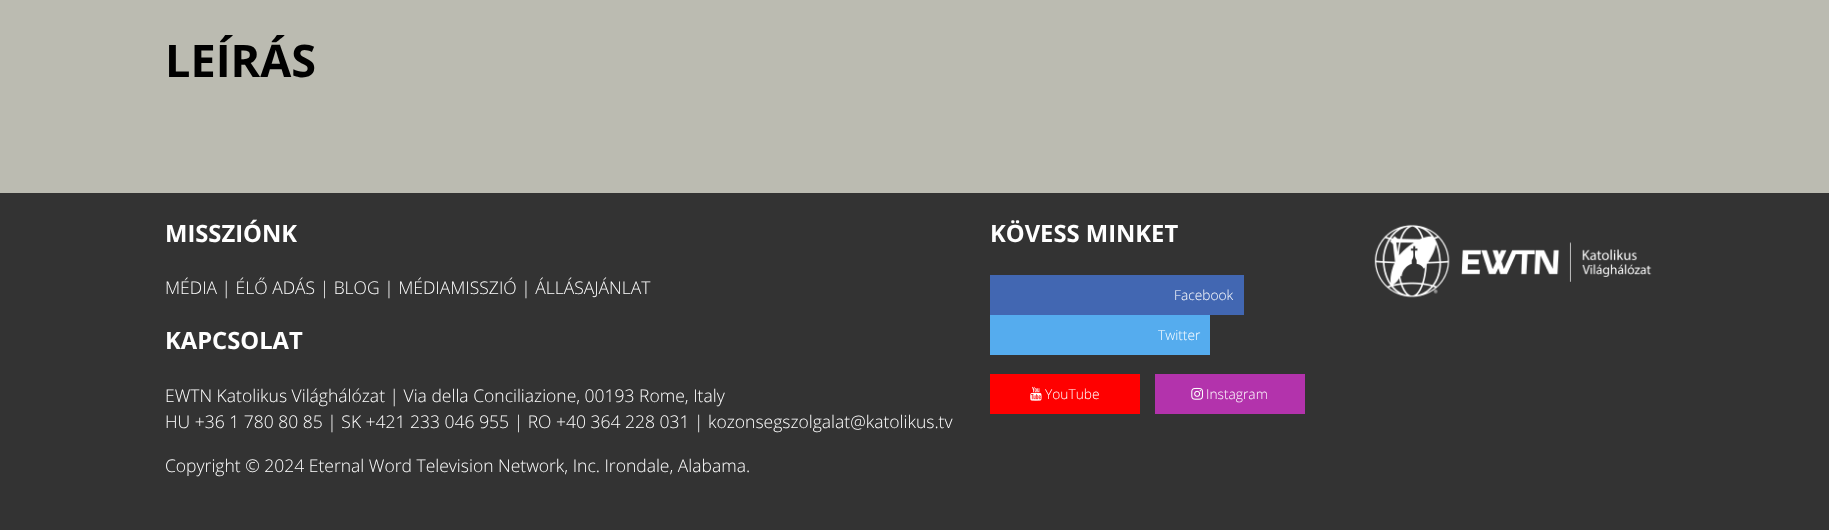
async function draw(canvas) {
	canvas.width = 1829;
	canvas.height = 530;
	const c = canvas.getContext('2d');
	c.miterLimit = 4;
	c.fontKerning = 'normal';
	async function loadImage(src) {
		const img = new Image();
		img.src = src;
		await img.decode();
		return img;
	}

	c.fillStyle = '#333';
	c.fillRect(0, 0, 1829, 530);
	c.fillStyle = '#bbbbb1';
	c.fillRect(0, 0, 1829, 193);
	c.font = 'bold 45px Open Sans';
	c.fillStyle = '#000';
	c.fillText('LEÍRÁS', 165, 77);
	c.font = 'bold 23.75px Open Sans';
	c.fillStyle = '#fff';
	c.fillText('MISSZIÓNK', 165, 242);
	c.font = '300 17.5px Open Sans';
	c.fillText('MÉDIA | ÉLŐ ADÁS | BLOG | MÉDIAMISSZIÓ | ÁLLÁSAJÁNLAT', 165, 294);
	c.font = 'bold 23.75px Open Sans';
	c.fillText('KAPCSOLAT', 165, 349);
	c.font = '300 17.5px Open Sans';
	for (const [text, x, y] of [
		['EWTN Katolikus Világhálózat | Via della Conciliazione, 00193 Rome, Italy', 165, 402],
		['HU +36 1 780 80 85 | SK +421 233 046 955 | RO +40 364 228 031 | kozonsegszolgalat@katolikus.tv', 165, 428],
		['Copyright © 2024 Eternal Word Television Network, Inc. Irondale, Alabama.', 165, 472],
	]) {
		c.fillText(text, x, y);
	}
	c.font = 'bold 23.75px Open Sans';
	c.fillText('KÖVESS MINKET', 990, 242);
	c.fillStyle = '#4267b2';
	c.fillRect(990, 275, 254, 40);
	c.font = '300 13.75px Open Sans';
	c.fillStyle = '#fff';
	c.fillText('Facebook', 1174, 300);
	c.fillStyle = '#55acee';
	c.fillRect(990, 315, 220, 40);
	c.fillStyle = '#fff';
	c.fillText('Twitter', 1158, 340);
	c.fillStyle = '#f00';
	c.fillRect(990, 374, 150, 40);
	c.drawImage(await loadImage('img1.png'), 1030, 386, 12, 15);
	c.fillStyle = '#fff';
	c.fillText('YouTube', 1045, 399);
	c.fillStyle = '#b333ac';
	c.fillRect(1155, 374, 150, 40);
	c.drawImage(await loadImage('img2.png'), 1191, 387, 13, 13);
	c.fillStyle = '#fff';
	c.fillText('Instagram', 1206, 399);
	c.drawImage(await loadImage('img3.png'), 1374, 224, 278, 74);
}

draw(document.querySelector('canvas'));
